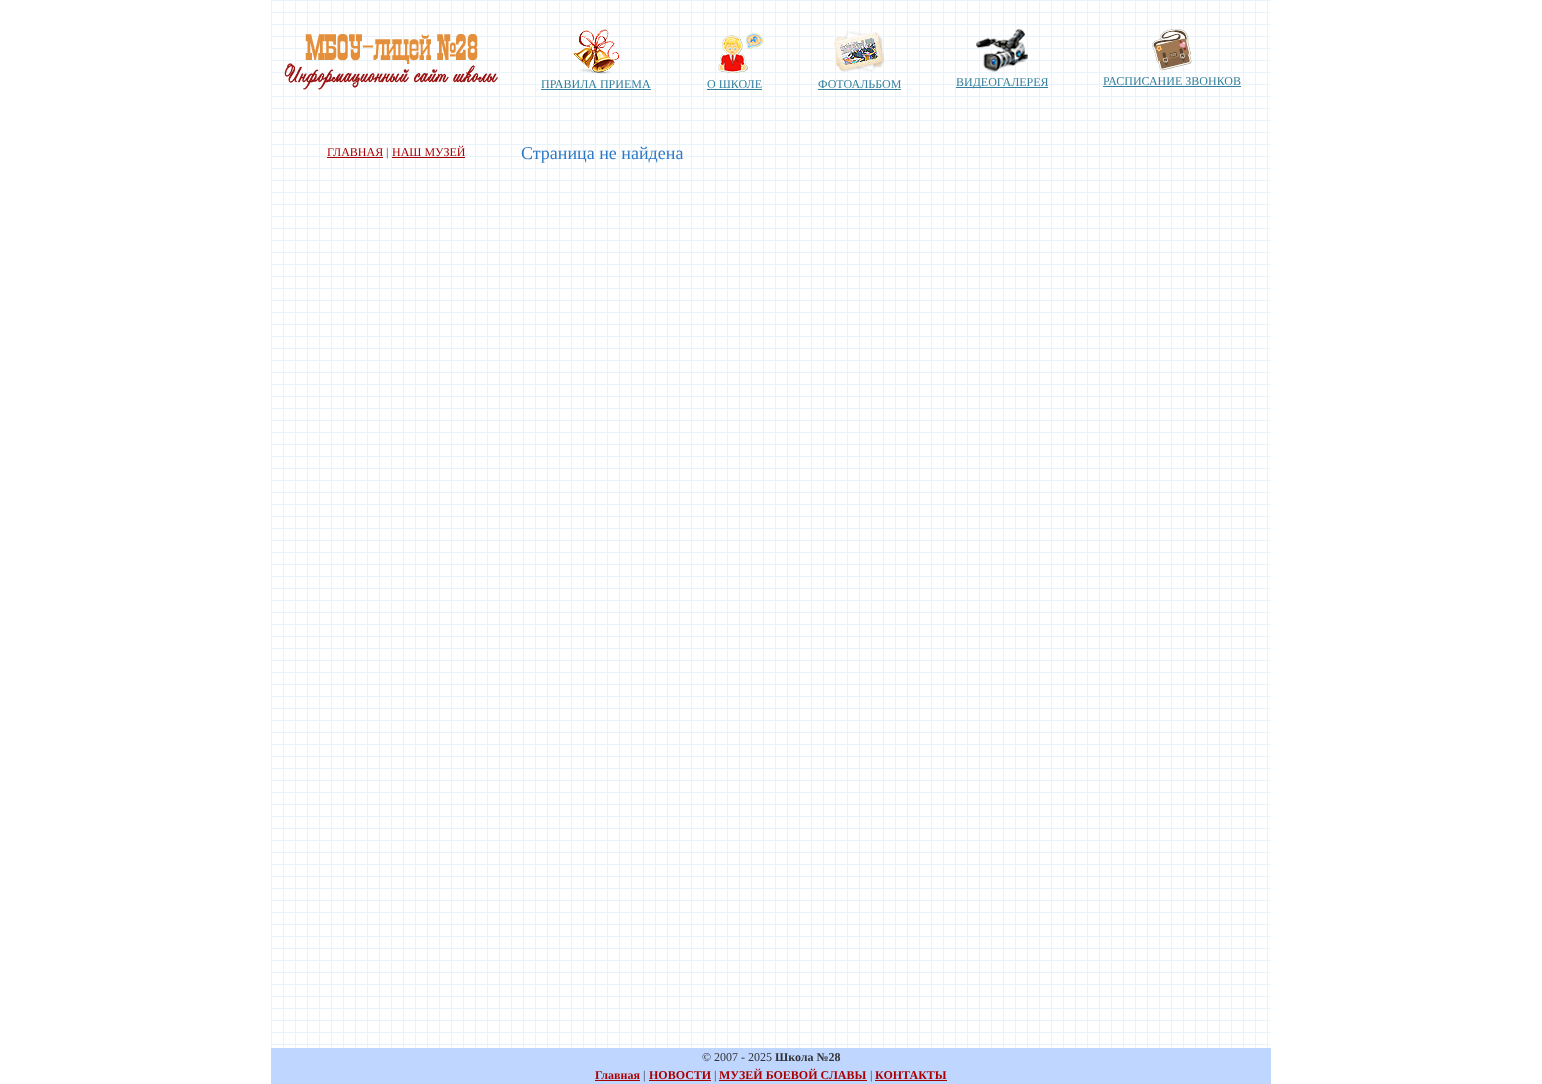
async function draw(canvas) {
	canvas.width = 1542;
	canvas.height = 1084;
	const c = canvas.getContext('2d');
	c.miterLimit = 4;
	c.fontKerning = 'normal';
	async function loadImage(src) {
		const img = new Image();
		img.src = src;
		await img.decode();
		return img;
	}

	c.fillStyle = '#fff';
	c.fillRect(0, 0, 1542, 1084);
	c.drawImage(await loadImage('img1.png'), 271, 0, 1000, 1048);
	c.drawImage(await loadImage('img2.png'), 284, 34, 214, 56);
	c.drawImage(await loadImage('img3.png'), 573, 29, 46, 45);
	c.font = '12px Liberation Serif';
	c.fillStyle = '#35809c';
	c.fillText('ПРАВИЛА ПРИЕМА', 541, 88);
	c.fillRect(541, 89, 110, 1);
	c.drawImage(await loadImage('img4.png'), 718, 33, 45, 40);
	c.fillText('О ШКОЛЕ', 707, 88);
	c.fillRect(707, 89, 55, 1);
	c.drawImage(await loadImage('img5.png'), 834, 31, 51, 41);
	c.fillText('ФОТОАЛЬБОМ', 818, 88);
	c.fillRect(818, 89, 83, 1);
	c.drawImage(await loadImage('img6.png'), 976, 29, 52, 43);
	c.fillRect(956, 87, 92, 1);
	c.fillText('ВИДЕОГАЛЕРЕЯ', 956, 86);
	c.drawImage(await loadImage('img7.png'), 1152, 29, 40, 42);
	c.fillText('РАСПИСАНИЕ ЗВОНКОВ', 1103, 85);
	c.fillRect(1103, 86, 138, 1);
	c.fillStyle = '#ab0000';
	c.fillText('ГЛАВНАЯ', 327, 156);
	c.fillRect(327, 157, 56, 1);
	c.fillStyle = '#333';
	c.fillText('|', 386, 156);
	c.fillStyle = '#ab0000';
	c.fillText('НАШ МУЗЕЙ', 392, 156);
	c.fillRect(392, 157, 73, 1);
	c.font = '18px Liberation Serif';
	c.fillStyle = '#2d79c6';
	c.fillText('Страница не найдена', 521, 159);
	c.fillStyle = '#bfd6ff';
	c.fillRect(271, 1048, 1000, 36);
	c.font = '12px Liberation Serif';
	c.fillStyle = '#333';
	c.fillText('© 2007 - 2025', 702, 1061);
	c.font = 'bold 12px Liberation Serif';
	c.fillText('Школа №28', 775, 1061);
	c.fillStyle = '#ab0000';
	c.fillText('Главная', 595, 1079);
	c.fillRect(595, 1080, 45, 1);
	c.font = '12px Liberation Serif';
	c.fillStyle = '#333';
	c.fillText('|', 643, 1079);
	c.font = 'bold 12px Liberation Serif';
	c.fillStyle = '#ab0000';
	c.fillText('НОВОСТИ', 649, 1079);
	c.fillRect(649, 1080, 62, 1);
	c.font = '12px Liberation Serif';
	c.fillStyle = '#333';
	c.fillText('|', 714, 1079);
	c.font = 'bold 12px Liberation Serif';
	c.fillStyle = '#ab0000';
	c.fillText('МУЗЕЙ БОЕВОЙ СЛАВЫ', 719, 1079);
	c.fillRect(719, 1080, 148, 1);
	c.font = '12px Liberation Serif';
	c.fillStyle = '#333';
	c.fillText('|', 870, 1079);
	c.font = 'bold 12px Liberation Serif';
	c.fillStyle = '#ab0000';
	c.fillText('КОНТАКТЫ', 875, 1079);
	c.fillRect(875, 1080, 72, 1);
}

draw(document.querySelector('canvas'));
